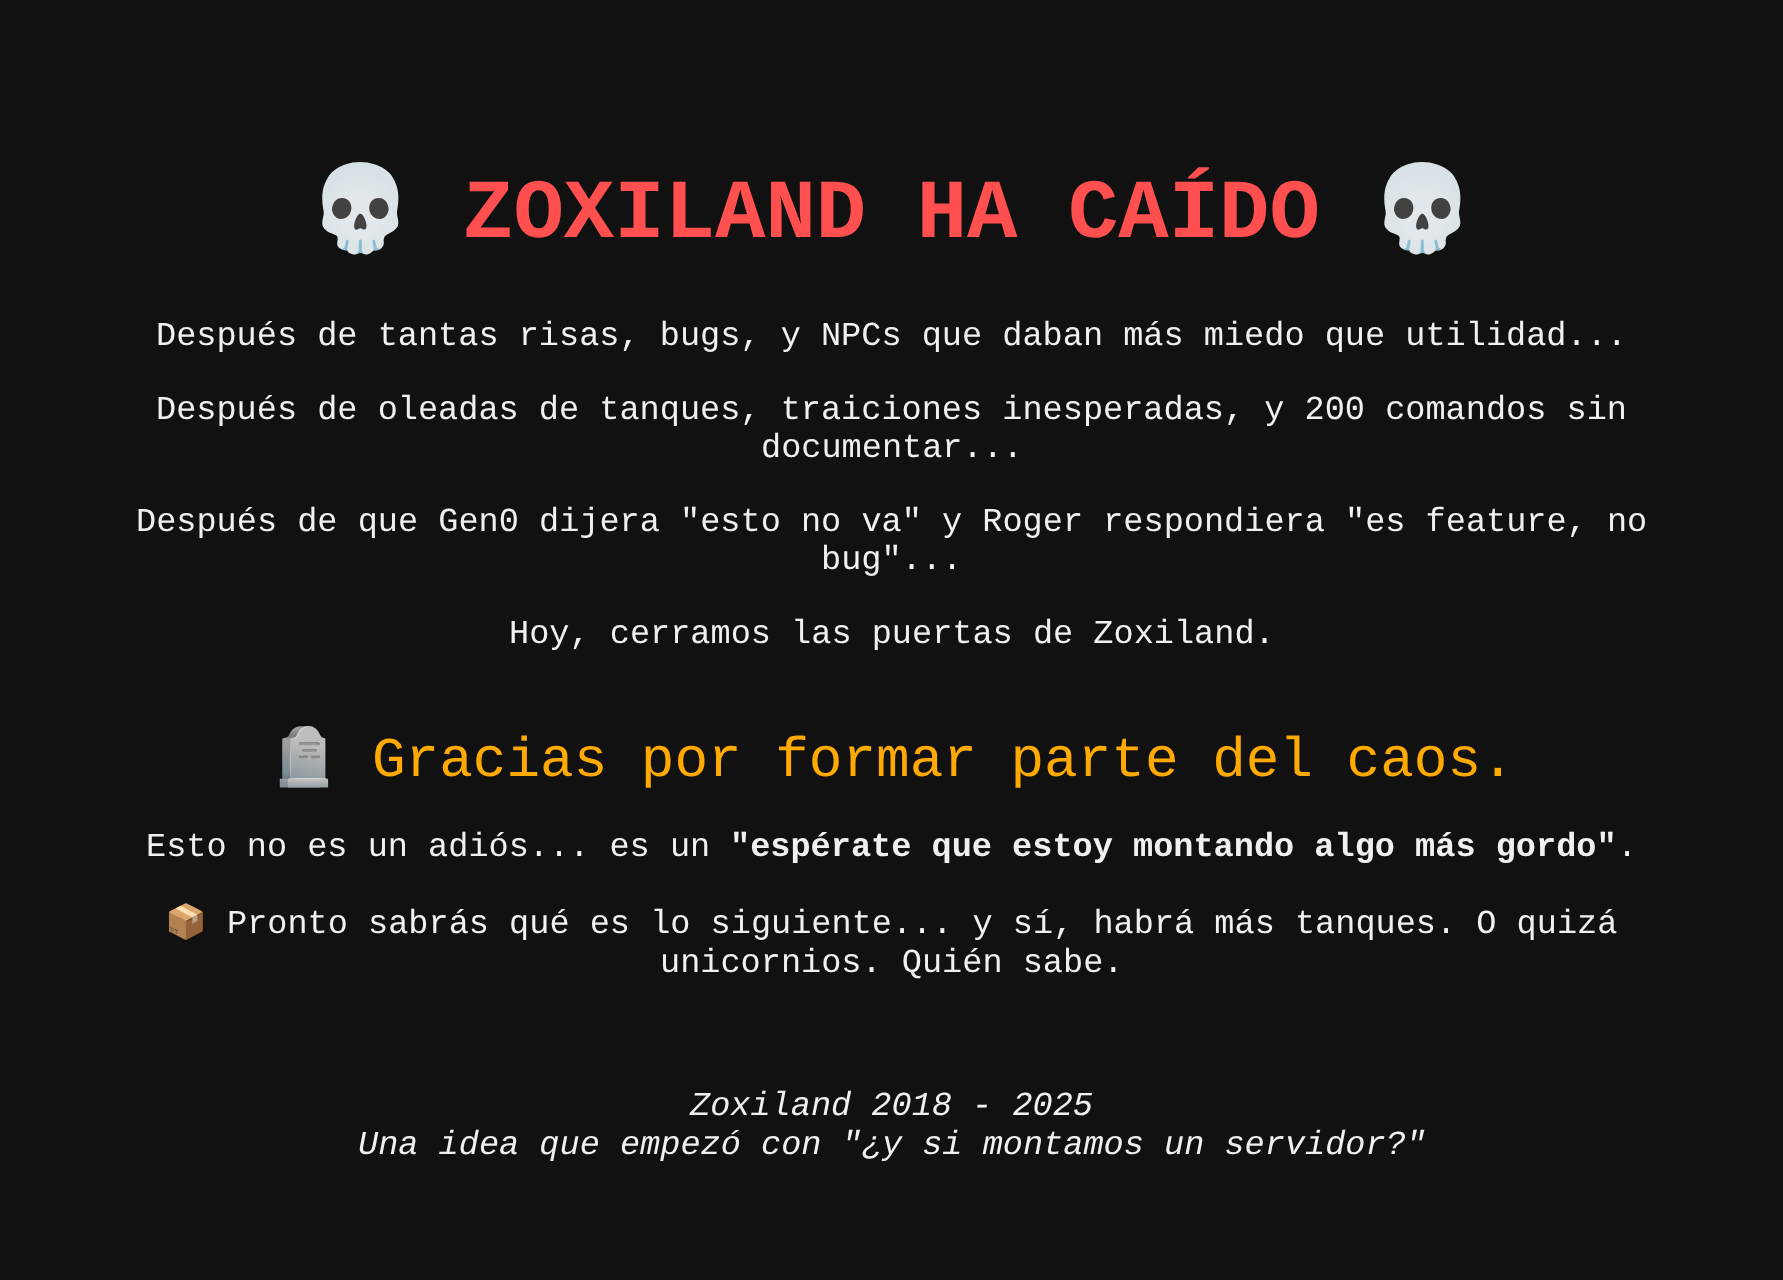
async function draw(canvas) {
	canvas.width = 1783;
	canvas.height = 1280;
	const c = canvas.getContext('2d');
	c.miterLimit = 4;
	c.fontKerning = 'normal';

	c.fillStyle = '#111';
	c.fillRect(0, 0, 1783, 1280);
	c.font = 'bold 84px Noto Color Emoji';
	c.fillStyle = '#ff4f4f';
	c.fillText('💀', 308, 237);
	c.font = 'bold 84px Liberation Mono';
	c.fillText('ZOXILAND HA CAÍDO', 463, 237);
	c.font = 'bold 84px Noto Color Emoji';
	c.fillText('💀', 1370, 237);
	c.font = '33.6px Liberation Mono';
	c.fillStyle = '#f0f0f0';
	for (const [text, x, y] of [
		['Después de tantas risas, bugs, y NPCs que daban más miedo que utilidad...', 156, 345],
		['Después de oleadas de tanques, traiciones inesperadas, y 200 comandos sin', 156, 419],
		['documentar...', 761, 457],
		['Después de que Gen0 dijera "esto no va" y Roger respondiera "es feature, no', 136, 531],
		['bug"...', 821, 569],
		['Hoy, cerramos las puertas de Zoxiland.', 509, 643],
	]) {
		c.fillText(text, x, y);
	}
	c.font = '56px Noto Color Emoji';
	c.fillStyle = '#fa0';
	c.fillText('🪦', 269, 776);
	c.font = '56px Liberation Mono';
	c.fillText('Gracias por formar parte del caos.', 372, 776);
	c.font = '33.6px Liberation Mono';
	c.fillStyle = '#f0f0f0';
	c.fillText('Esto no es un adiós... es un', 146, 856);
	c.font = 'bold 33.6px Liberation Mono';
	c.fillText('"espérate que estoy montando algo más gordo"', 730, 856);
	c.font = '33.6px Liberation Mono';
	c.fillText('.', 1617, 856);
	c.font = '33.6px Noto Color Emoji';
	c.fillText('📦', 165, 933);
	c.font = '33.6px Liberation Mono';
	c.fillText('Pronto sabrás qué es lo siguiente... y sí, habrá más tanques. O quizá', 227, 933);
	c.fillText('unicornios. Quién sabe.', 660, 972);
	c.font = 'italic 33.6px Liberation Mono';
	c.fillText('Zoxiland 2018 - 2025', 690, 1115);
	c.fillText('Una idea que empezó con "¿y si montamos un servidor?"', 358, 1154);
}

draw(document.querySelector('canvas'));
